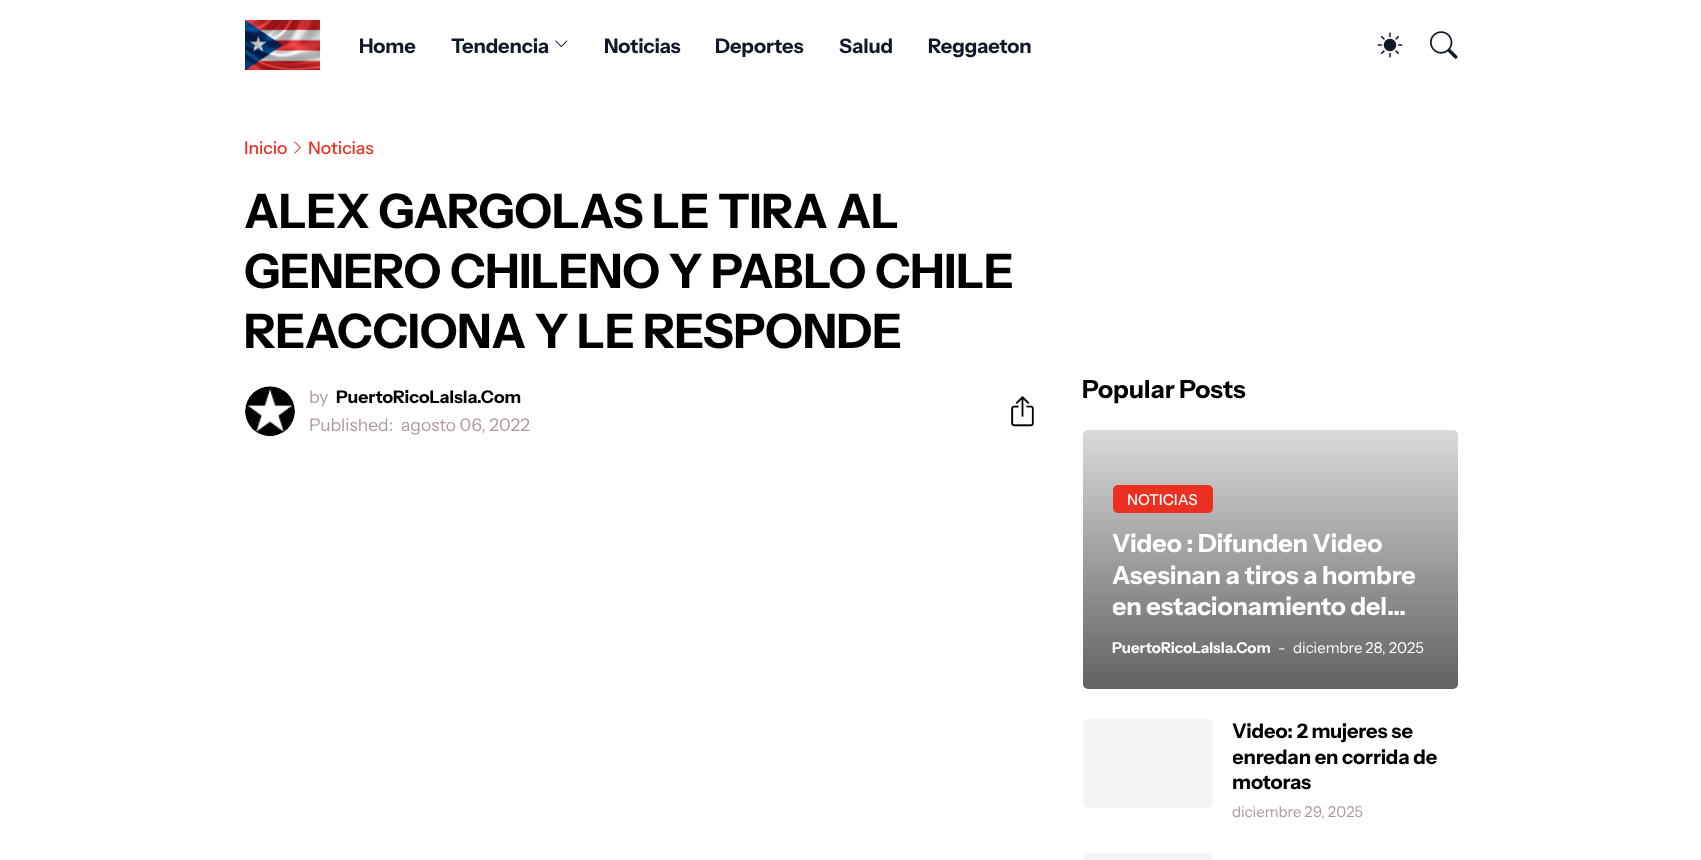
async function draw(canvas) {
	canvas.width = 1701;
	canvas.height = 860;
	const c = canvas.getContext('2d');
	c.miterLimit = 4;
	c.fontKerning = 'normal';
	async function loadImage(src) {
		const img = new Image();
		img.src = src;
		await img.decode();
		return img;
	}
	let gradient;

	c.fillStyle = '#fff';
	c.fillRect(0, 0, 1701, 860);
	c.drawImage(await loadImage('img1.png'), 245, 20, 75, 50);
	c.letterSpacing = '-0.1px';
	c.font = 'bold 20px Instrument Sans';
	c.fillStyle = '#111827';
	c.fillText('Home', 359, 53);
	c.fillText('Tendencia', 451, 53);
	c.drawImage(await loadImage('img2.png'), 555, 40, 13, 7);
	for (const [text, x, y] of [
		['Noticias', 604, 53],
		['Deportes', 715, 53],
		['Salud', 839, 53],
		['Reggaeton', 928, 53],
	]) {
		c.fillText(text, x, y);
	}
	c.drawImage(await loadImage('img3.png'), 1377, 32, 26, 26);
	c.drawImage(await loadImage('img4.png'), 1430, 31, 28, 28);
	c.letterSpacing = '0px';
	c.font = '500 17.5px Instrument Sans';
	c.fillStyle = '#eb3021';
	c.fillText('Inicio', 244, 154);
	c.drawImage(await loadImage('img5.png'), 294, 141, 7, 13);
	c.fillText('Noticias', 308, 154);
	c.letterSpacing = '-0.25px';
	c.font = 'bold 47.5px Instrument Sans';
	c.fillStyle = '#000';
	for (const [text, x, y] of [
		['ALEX GARGOLAS LE TIRA AL', 244, 228],
		['GENERO CHILENO Y PABLO CHILE', 244, 288],
		['REACCIONA Y LE RESPONDE', 244, 348],
	]) {
		c.fillText(text, x, y);
	}
	c.fillStyle = '#f5f2f2';
	c.beginPath();
	c.arc(270, 411, 25, 0, 2 * Math.PI);
	c.fill();
	c.drawImage(await loadImage('img6.png'), 245, 386, 50, 51);
	c.letterSpacing = '0px';
	c.font = '17.5px Instrument Sans';
	c.fillStyle = '#ae9b9a';
	c.fillText('by', 309, 403);
	c.font = 'bold 17.5px Instrument Sans';
	c.fillStyle = '#000';
	c.fillText('PuertoRicoLaIsla.Com', 336, 403);
	c.font = '17.5px Instrument Sans';
	c.fillStyle = '#ae9b9a';
	c.fillText('Published:', 309, 431);
	c.fillText('agosto 06, 2022', 401, 431);
	c.drawImage(await loadImage('img7.png'), 1011, 396, 23, 31);
	c.letterSpacing = '-0.1px';
	c.font = 'bold 25px Instrument Sans';
	c.fillStyle = '#000';
	c.fillText('Popular Posts', 1082, 398);
	c.fillStyle = '#f3f3f3';
	c.beginPath();
	c.roundRect(1083, 430, 375, 259, 5);
	c.fill();
	gradient = c.createLinearGradient(1270, 689, 1270, 430);
	gradient.addColorStop(0, '#00000099');
	gradient.addColorStop(1, '#0000001a');
	c.fillStyle = gradient;
	c.beginPath();
	c.roundRect(1083, 430, 375, 259, 5);
	c.fill();
	c.fillStyle = '#eb3021';
	c.beginPath();
	c.roundRect(1113, 485, 100, 28, 5);
	c.fill();
	c.letterSpacing = '0px';
	c.font = '500 15px Instrument Sans';
	c.fillStyle = '#fff';
	c.fillText('NOTICIAS', 1127, 505);
	c.letterSpacing = '-0.1px';
	c.font = 'bold 25px Instrument Sans';
	c.fillText('Video : Difunden Video', 1112, 552);
	c.fillText('Asesinan a tiros a hombre', 1112, 584);
	c.save();
	c.beginPath();
	c.rect(1113, 528, 315, 96);
	c.clip();
	c.fillText('en estacionamiento del…', 1112, 615);
	c.restore();
	c.letterSpacing = '0px';
	c.font = 'bold 15px Instrument Sans';
	c.fillStyle = '#f9fafb';
	c.fillText('PuertoRicoLaIsla.Com', 1112, 653);
	c.font = '15px Instrument Sans';
	c.fillText('-', 1278, 653);
	c.fillText('diciembre 28, 2025', 1293, 653);
	c.fillStyle = '#f5f2f2';
	c.beginPath();
	c.roundRect(1083, 719, 130, 89, 5);
	c.fill();
	c.letterSpacing = '-0.1px';
	c.font = 'bold 20px Instrument Sans';
	c.fillStyle = '#000';
	c.fillText('Video: 2 mujeres se', 1232, 738);
	c.save();
	c.beginPath();
	c.rect(1233, 719, 225, 76);
	c.clip();
	c.fillText('enredan en corrida de', 1232, 764);
	c.restore();
	c.fillText('motoras', 1232, 789);
	c.letterSpacing = '0px';
	c.font = '15px Instrument Sans';
	c.fillStyle = '#ae9b9a';
	c.fillText('diciembre 29, 2025', 1232, 817);
	c.fillStyle = '#f5f2f2';
	c.beginPath();
	c.roundRect(1083, 853, 130, 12, 5);
	c.fill();
}

draw(document.querySelector('canvas'));
